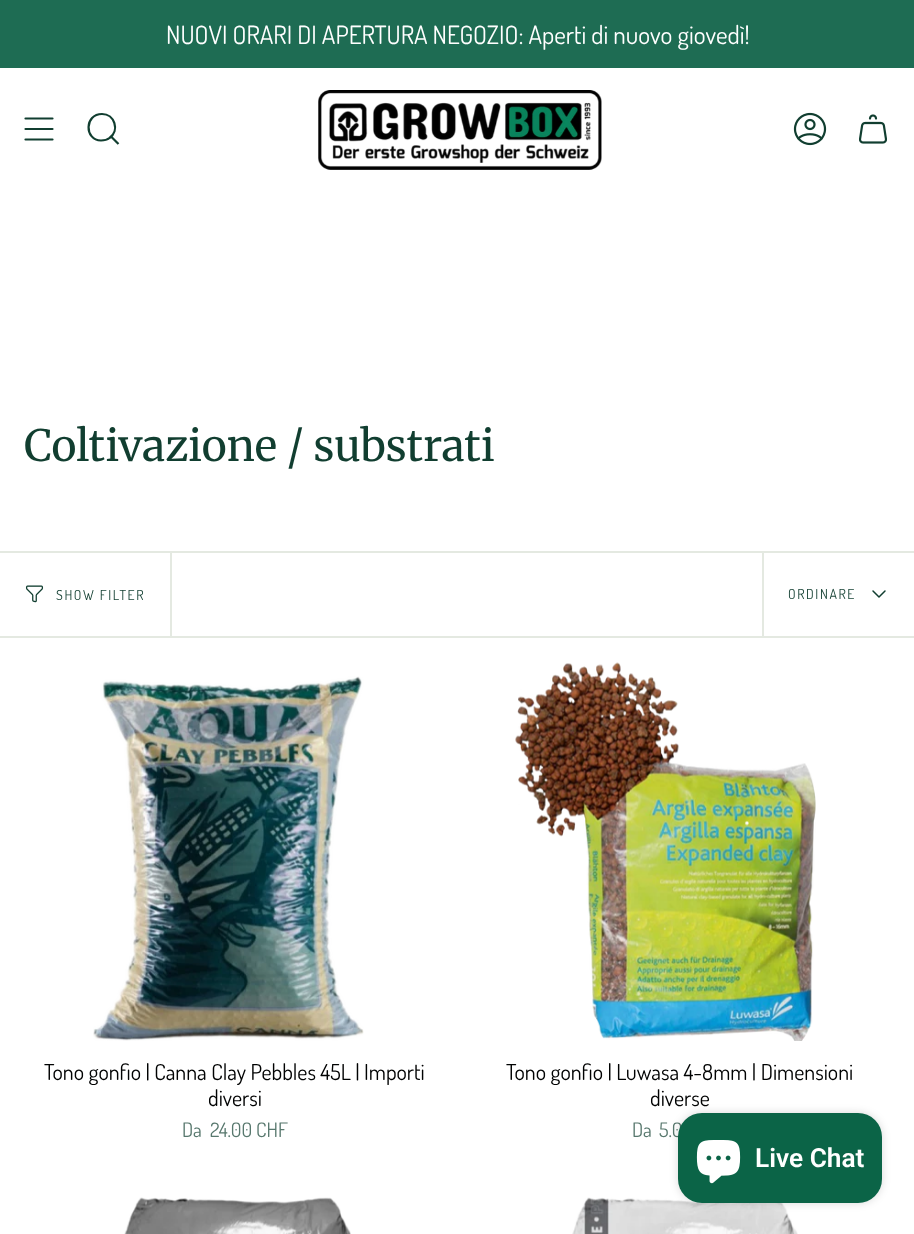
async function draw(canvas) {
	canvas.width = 914;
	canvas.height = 1234;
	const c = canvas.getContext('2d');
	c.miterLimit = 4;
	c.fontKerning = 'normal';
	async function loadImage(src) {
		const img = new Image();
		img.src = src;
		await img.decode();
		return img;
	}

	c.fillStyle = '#fff';
	c.fillRect(0, 0, 914, 1234);
	c.fillStyle = '#1e6c53';
	c.fillRect(0, 0, 914, 68);
	c.font = '25.2px Dosis';
	c.fillStyle = '#fff';
	c.fillText('NUOVI ORARI DI APERTURA NEGOZIO: Aperti di nuovo giovedì!', 166, 44);
	c.beginPath();
	c.moveTo(25.5, 118.5);
	c.lineTo(52.5, 118.5);
	c.moveTo(25.5, 129);
	c.lineTo(52.5, 129);
	c.moveTo(25.5, 139.5);
	c.lineTo(52.5, 139.5);
	c.strokeStyle = '#113e30';
	c.lineWidth = 2.2;
	c.lineCap = 'round';
	c.lineJoin = 'round';
	c.stroke();
	c.beginPath();
	c.moveTo(102, 114);
	c.bezierCurveTo(114.5, 114, 120, 130.5, 109.5, 138);
	c.bezierCurveTo(107, 140, 104, 140.5, 101, 140.5);
	c.bezierCurveTo(84, 140, 84.5, 114, 102, 114);
	c.closePath();
	c.moveTo(111, 136.5);
	c.lineTo(118.5, 144);
	c.lineCap = 'butt';
	c.lineJoin = 'miter';
	c.stroke();
	c.drawImage(await loadImage('img1.png'), 318, 90, 284, 80);
	c.drawImage(await loadImage('img2.png'), 793, 112, 34, 34);
	c.drawImage(await loadImage('img3.png'), 859, 114, 28, 30);
	c.font = '43.1px Merriweather';
	c.fillStyle = '#113e30';
	c.fillText('Coltivazione / substrati', 24, 461);
	for (const [x, y, w, h, color] of [
		[0, 551, 914, 2, '#e4e9e1'],
		[0, 636, 914, 2, '#e4e9e1'],
		[170, 552, 2, 84, '#e4e9e1'],
	]) {
		c.fillStyle = color;
		c.fillRect(x, y, w, h);
	}
	c.drawImage(await loadImage('img4.png'), 25, 585, 19, 18);
	c.letterSpacing = '1.6px';
	c.font = '13.75px Dosis';
	c.fillStyle = '#113e30';
	c.fillText('SHOW FILTER', 56, 600);
	c.fillStyle = '#e4e9e1';
	c.fillRect(762, 552, 2, 84);
	c.fillStyle = '#113e30';
	c.fillText('ORDINARE', 788, 599);
	c.beginPath();
	c.moveTo(873, 591);
	c.lineTo(879, 597);
	c.lineTo(885, 591);
	c.lineWidth = 1.5;
	c.lineCap = 'round';
	c.lineJoin = 'round';
	c.stroke();
	c.drawImage(await loadImage('img5.png'), 93, 676, 271, 365);
	c.letterSpacing = '0px';
	c.font = '22px Dosis';
	c.fillStyle = '#000202';
	c.fillText('Tono gonfio | Canna Clay Pebbles 45L | Importi', 44, 1080);
	c.fillText('diversi', 208, 1106);
	c.font = '20px Dosis';
	c.fillStyle = '#58786e';
	c.fillText('Da', 182, 1137);
	c.fillText('24.00 CHF', 210, 1137);
	c.drawImage(await loadImage('img6.png'), 515, 662, 301, 379);
	c.font = '22px Dosis';
	c.fillStyle = '#000202';
	c.fillText('Tono gonfio | Luwasa 4-8mm | Dimensioni', 506, 1080);
	c.fillText('diverse', 650, 1106);
	c.font = '20px Dosis';
	c.fillStyle = '#58786e';
	c.fillText('Da', 632, 1137);
	c.fillText('5.0', 659, 1137);
	c.drawImage(await loadImage('img7.png'), 124, 1197, 227, 37);
	c.drawImage(await loadImage('img8.png'), 572, 1197, 226, 37);
	c.fillStyle = '#00000026';
	c.filter = 'blur(4px)';
	c.beginPath();
	c.roundRect(678, 1113, 204, 90, 24);
	c.fill();
	c.filter = 'none';
	c.fillStyle = '#0b6447';
	c.beginPath();
	c.roundRect(678, 1113, 204, 90, 24);
	c.fill();
	c.drawImage(await loadImage('img9.png'), 696, 1140, 45, 44);
	c.font = '600 26.25px Roboto';
	c.fillStyle = '#fff';
	c.fillText('Live Chat', 755, 1167);
}

draw(document.querySelector('canvas'));
